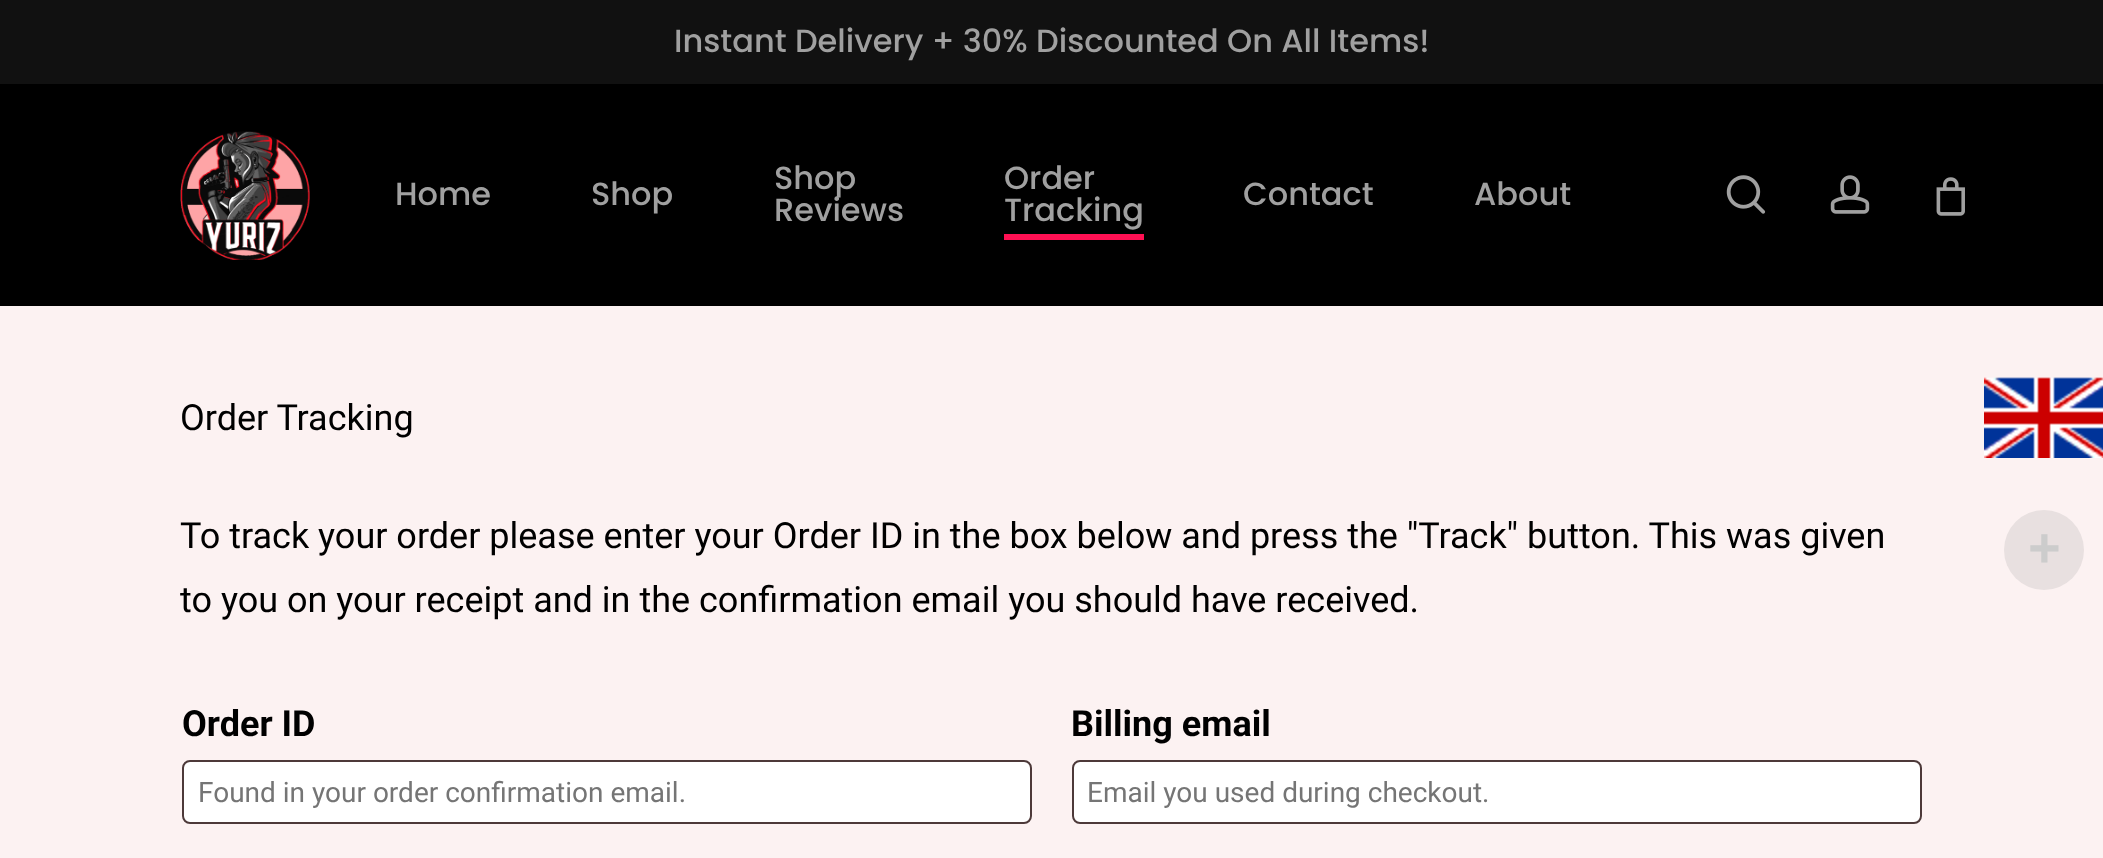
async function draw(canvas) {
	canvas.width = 2103;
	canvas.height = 858;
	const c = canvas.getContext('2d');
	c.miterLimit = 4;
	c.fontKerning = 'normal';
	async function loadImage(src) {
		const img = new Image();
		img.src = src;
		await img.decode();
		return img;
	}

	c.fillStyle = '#fcf2f2';
	c.fillRect(0, 0, 2103, 858);
	c.fillStyle = '#111';
	c.fillRect(0, 0, 2103, 84);
	c.font = '500 32px Poppins';
	c.fillStyle = '#a0a0a0';
	c.fillText('Instant Delivery + 30% Discounted On All Items!', 674, 52);
	c.fillStyle = '#000';
	c.fillRect(0, 84, 2103, 222);
	c.drawImage(await loadImage('img1.png'), 180, 131, 130, 129);
	c.fillStyle = '#a0a0a0';
	for (const [text, x, y] of [
		['Home', 395, 205],
		['Shop', 591, 205],
		['Shop', 774, 189],
		['Reviews', 774, 221],
		['Order', 1004, 189],
		['Tracking', 1004, 221],
	]) {
		c.fillText(text, x, y);
	}
	c.fillStyle = '#ff1053';
	c.fillRect(1004, 234, 140, 6);
	c.fillStyle = '#a0a0a0';
	c.fillText('Contact', 1243, 205);
	c.fillText('About', 1474, 205);
	c.drawImage(await loadImage('img2.png'), 1726, 175, 40, 39);
	c.drawImage(await loadImage('img3.png'), 1830, 175, 40, 39);
	c.drawImage(await loadImage('img4.png'), 1936, 177, 29, 39);
	c.font = '36px Roboto';
	c.fillStyle = '#000';
	for (const [text, x, y] of [
		['Order Tracking', 180, 430],
		['To track your order please enter your Order ID in the box below and press the "Track" button. This was given', 180, 548],
		['to you on your receipt and in the confirmation email you should have received.', 180, 612],
	]) {
		c.fillText(text, x, y);
	}
	c.font = 'bold 36px Roboto';
	c.fillText('Order ID', 182, 736);
	c.fillStyle = '#fff';
	c.beginPath();
	c.roundRect(182, 760, 850, 64, 8);
	c.fill();
	c.beginPath();
	c.roundRect(183, 761, 848, 62, 7);
	c.strokeStyle = '#200707cc';
	c.lineWidth = 2;
	c.stroke();
	c.font = '28px Roboto';
	c.fillStyle = '#757575';
	c.fillText('Found in your order confirmation email.', 198, 802);
	c.font = 'bold 36px Roboto';
	c.fillStyle = '#000';
	c.fillText('Billing email', 1071, 736);
	c.fillStyle = '#fff';
	c.beginPath();
	c.roundRect(1072, 760, 850, 64, 8);
	c.fill();
	c.beginPath();
	c.roundRect(1073, 761, 848, 62, 7);
	c.stroke();
	c.font = '28px Roboto';
	c.fillStyle = '#757575';
	c.fillText('Email you used during checkout.', 1087, 802);
	c.drawImage(await loadImage('img5.png'), 1984, 377, 119, 81);
	c.fillStyle = '#e8e0e0';
	c.beginPath();
	c.arc(2044, 550, 40, 0, 2 * Math.PI);
	c.fill();
	c.font = 'bold 56px Liberation Sans';
	c.fillStyle = '#ccc';
	c.fillText('+', 2028, 567);
}

draw(document.querySelector('canvas'));
